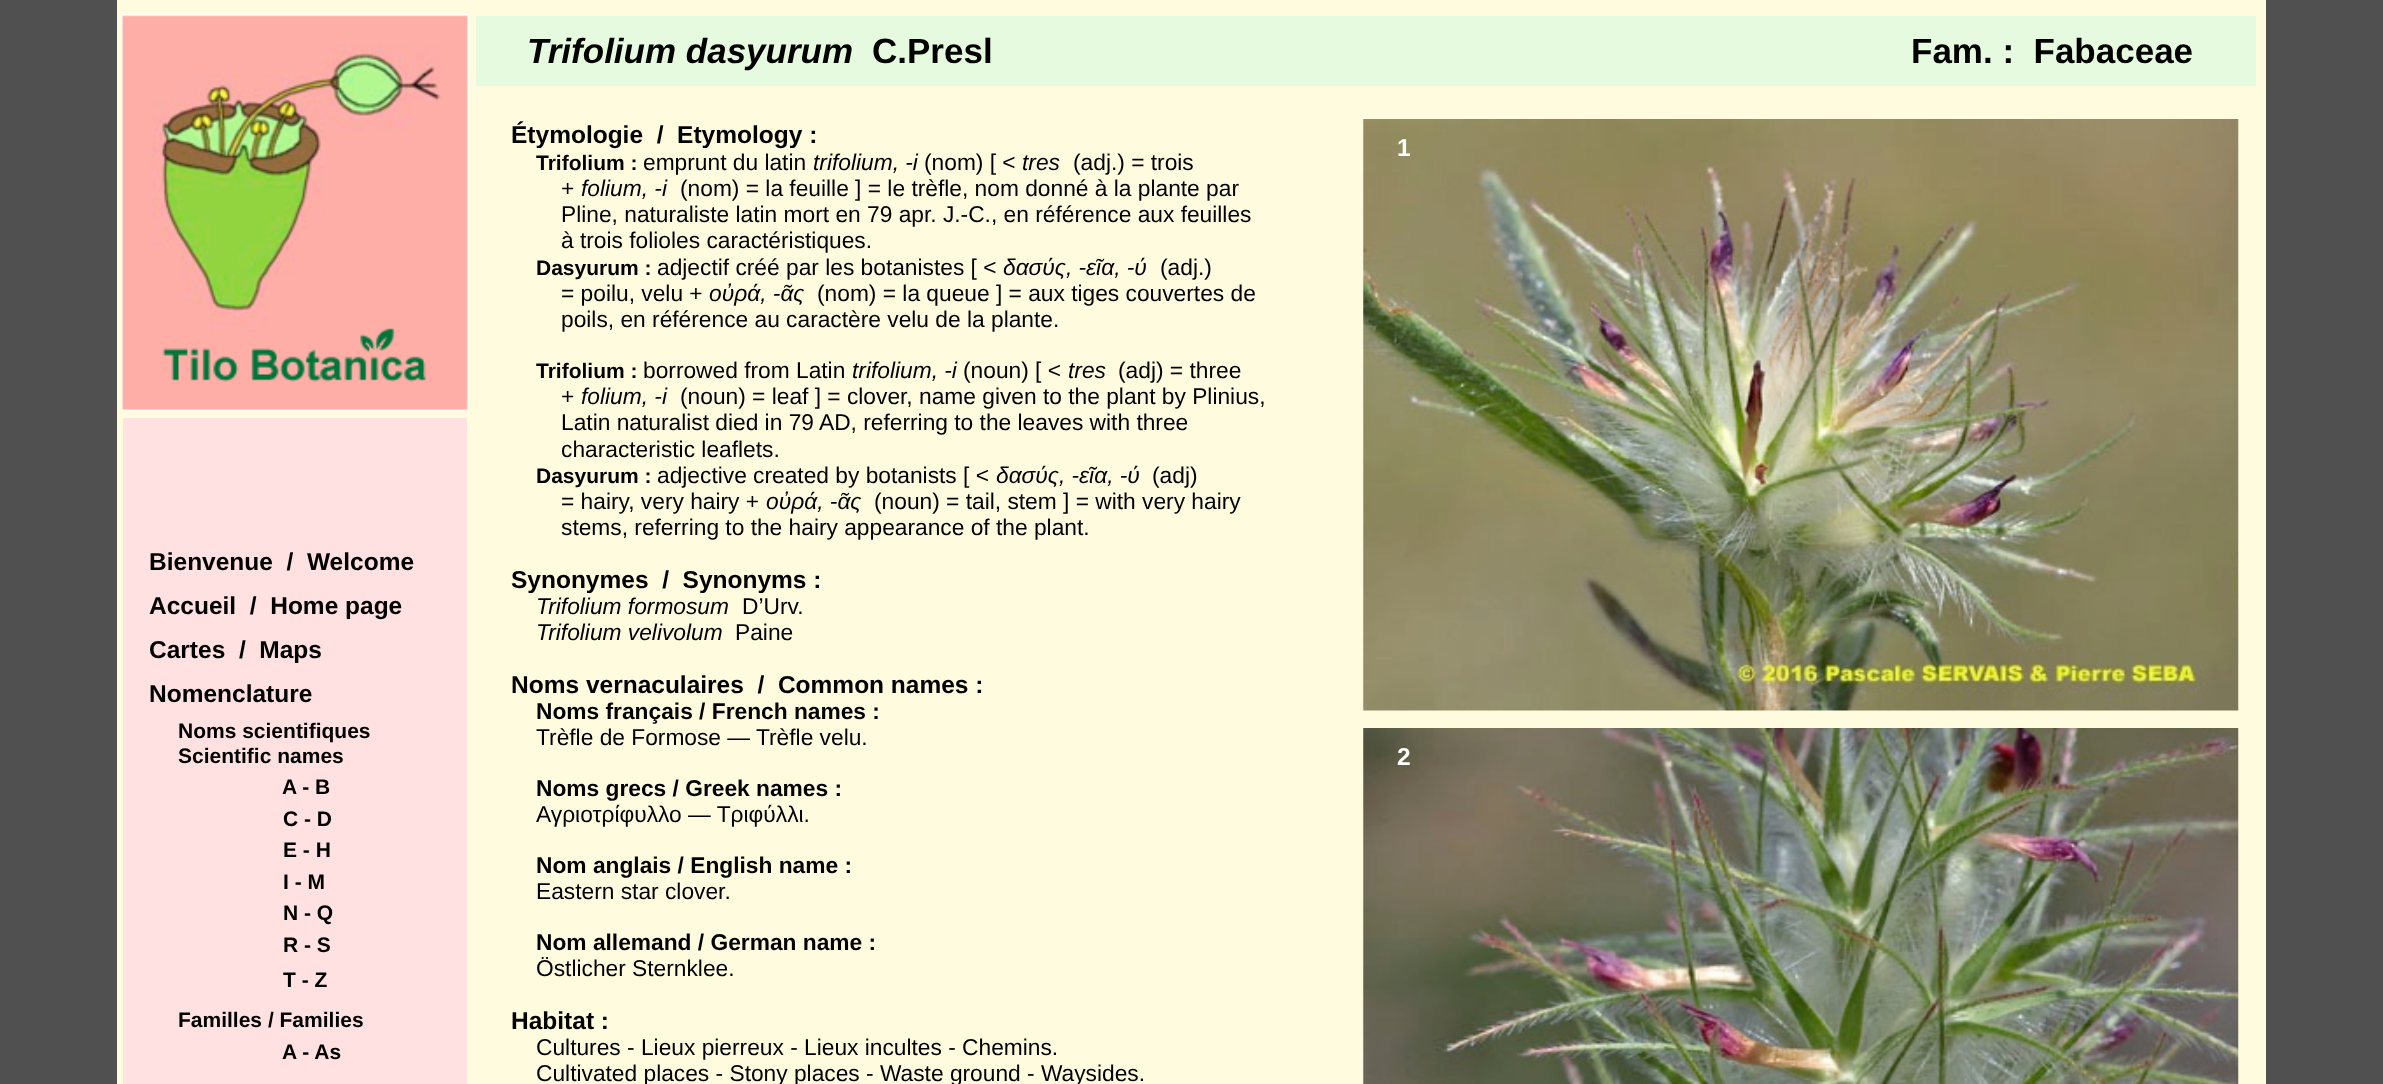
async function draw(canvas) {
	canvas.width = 2383;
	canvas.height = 1084;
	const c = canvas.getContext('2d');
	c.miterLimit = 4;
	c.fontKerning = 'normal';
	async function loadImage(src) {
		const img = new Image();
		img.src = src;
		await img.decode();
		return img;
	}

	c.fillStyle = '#505050';
	c.fillRect(0, 0, 2383, 1084);
	c.fillStyle = '#fffbdf';
	c.fillRect(117, 0, 2149, 1084);
	c.drawImage(await loadImage('img1.png'), 120, 14, 349, 398);
	c.fillStyle = '#e6fadf';
	c.fillRect(476, 16, 1780, 70);
	c.font = 'italic bold 35px Liberation Sans';
	c.fillStyle = '#000';
	c.fillText('Trifolium dasyurum', 527, 63);
	c.font = 'bold 35px Liberation Sans';
	c.fillText('C.Presl', 872, 63);
	c.fillText('Fam. :  Fabaceae', 1911, 63);
	c.font = 'bold 24.5px Liberation Sans';
	c.fillText('Étymologie  /  Etymology :', 511, 143);
	c.font = 'bold 21px Liberation Sans';
	c.fillText('Trifolium :', 536, 170);
	c.font = '22.75px Liberation Sans';
	c.fillText('emprunt du latin', 643, 170);
	c.font = 'italic 22.75px Liberation Sans';
	c.fillText('trifolium, -i', 813, 170);
	c.font = '22.75px Liberation Sans';
	c.fillText('(nom) [ <', 924, 170);
	c.font = 'italic 22.75px Liberation Sans';
	c.fillText('tres', 1022, 170);
	c.font = '22.75px Liberation Sans';
	c.fillText('(adj.) = trois', 1073, 170);
	c.fillText('+', 561, 196);
	c.font = 'italic 22.75px Liberation Sans';
	c.fillText('folium, -i', 581, 196);
	c.font = '22.75px Liberation Sans';
	for (const [text, x, y] of [
		['(nom) = la feuille ] = le trèfle, nom donné à la plante par', 680, 196],
		['Pline, naturaliste latin mort en 79 apr. J.-C., en référence aux feuilles', 561, 222],
		['à trois folioles caractéristiques.', 561, 248],
	]) {
		c.fillText(text, x, y);
	}
	c.font = 'bold 21px Liberation Sans';
	c.fillText('Dasyurum :', 536, 275);
	c.font = '22.75px Liberation Sans';
	c.fillText('adjectif créé par les botanistes [ <', 657, 275);
	c.font = 'italic 22.75px Liberation Sans';
	c.fillText('δασύς, -εῖα, -ύ', 1003, 275);
	c.font = '22.75px Liberation Sans';
	c.fillText('(adj.)', 1160, 275);
	c.fillText('= poilu, velu +', 561, 301);
	c.font = 'italic 22.75px Liberation Sans';
	c.fillText('οὐρά, -ᾶς', 709, 301);
	c.font = '22.75px Liberation Sans';
	c.fillText('(nom) = la queue ] = aux tiges couvertes de', 817, 301);
	c.fillText('poils, en référence au caractère velu de la plante.', 561, 327);
	c.font = 'bold 21px Liberation Sans';
	c.fillText('Trifolium :', 536, 378);
	c.font = '22.75px Liberation Sans';
	c.fillText('borrowed from Latin', 643, 378);
	c.font = 'italic 22.75px Liberation Sans';
	c.fillText('trifolium, -i', 852, 378);
	c.font = '22.75px Liberation Sans';
	c.fillText('(noun) [ <', 963, 378);
	c.font = 'italic 22.75px Liberation Sans';
	c.fillText('tres', 1068, 378);
	c.font = '22.75px Liberation Sans';
	c.fillText('(adj) = three', 1118, 378);
	c.fillText('+', 561, 404);
	c.font = 'italic 22.75px Liberation Sans';
	c.fillText('folium, -i', 581, 404);
	c.font = '22.75px Liberation Sans';
	for (const [text, x, y] of [
		['(noun) = leaf ] = clover, name given to the plant by Plinius,', 680, 404],
		['Latin naturalist died in 79 AD, referring to the leaves with three', 561, 430],
		['characteristic leaflets.', 561, 457],
	]) {
		c.fillText(text, x, y);
	}
	c.font = 'bold 21px Liberation Sans';
	c.fillText('Dasyurum :', 536, 483);
	c.font = '22.75px Liberation Sans';
	c.fillText('adjective created by botanists [ <', 657, 483);
	c.font = 'italic 22.75px Liberation Sans';
	c.fillText('δασύς, -εῖα, -ύ', 996, 483);
	c.font = '22.75px Liberation Sans';
	c.fillText('(adj)', 1152, 483);
	c.fillText('= hairy, very hairy +', 561, 509);
	c.font = 'italic 22.75px Liberation Sans';
	c.fillText('οὐρά, -ᾶς', 766, 509);
	c.font = '22.75px Liberation Sans';
	c.fillText('(noun) = tail, stem ] = with very hairy', 874, 509);
	c.fillText('stems, referring to the hairy appearance of the plant.', 561, 535);
	c.font = 'bold 24.5px Liberation Sans';
	c.fillText('Synonymes  /  Synonyms :', 511, 588);
	c.font = 'italic 22.75px Liberation Sans';
	c.fillText('Trifolium formosum', 536, 614);
	c.font = '22.75px Liberation Sans';
	c.fillText('D’Urv.', 742, 614);
	c.font = 'italic 22.75px Liberation Sans';
	c.fillText('Trifolium velivolum', 536, 640);
	c.font = '22.75px Liberation Sans';
	c.fillText('Paine', 735, 640);
	c.font = 'bold 24.5px Liberation Sans';
	c.fillText('Noms vernaculaires  /  Common names :', 511, 693);
	c.font = 'bold 22.75px Liberation Sans';
	c.fillText('Noms français / French names :', 536, 719);
	c.font = '22.75px Liberation Sans';
	c.fillText('Trèfle de Formose — Trèfle velu.', 536, 745);
	c.font = 'bold 22.75px Liberation Sans';
	c.fillText('Noms grecs / Greek names :', 536, 796);
	c.font = '22.75px Liberation Sans';
	c.fillText('Αγριοτρίφυλλο — Τριφύλλι.', 536, 822);
	c.font = 'bold 22.75px Liberation Sans';
	c.fillText('Nom anglais / English name :', 536, 873);
	c.font = '22.75px Liberation Sans';
	c.fillText('Eastern star clover.', 536, 899);
	c.font = 'bold 22.75px Liberation Sans';
	c.fillText('Nom allemand / German name :', 536, 950);
	c.font = '22.75px Liberation Sans';
	c.fillText('Östlicher Sternklee.', 536, 976);
	c.font = 'bold 24.5px Liberation Sans';
	c.fillText('Habitat :', 511, 1029);
	c.font = '22.75px Liberation Sans';
	c.fillText('Cultures - Lieux pierreux - Lieux incultes - Chemins.', 536, 1055);
	c.fillText('Cultivated places - Stony places - Waste ground - Waysides.', 536, 1081);
	c.drawImage(await loadImage('img2.png'), 1363, 119, 876, 592);
	c.font = 'bold 24.5px Liberation Sans';
	c.fillStyle = '#feffff';
	c.fillText('1', 1397, 156);
	c.fillStyle = '#ffe1e1';
	c.fillRect(123, 418, 344, 666);
	c.fillStyle = '#000';
	for (const [text, x, y] of [
		['Bienvenue  /  Welcome', 149, 570],
		['Accueil  /  Home page', 149, 614],
		['Cartes  /  Maps', 149, 658],
		['Nomenclature', 149, 702],
	]) {
		c.fillText(text, x, y);
	}
	c.font = 'bold 21px Liberation Sans';
	for (const [text, x, y] of [
		['Noms scientifiques', 178, 738],
		['Scientific names', 178, 763],
		['A - B', 282, 794],
		['C - D', 283, 826],
		['E - H', 283, 857],
		['I - M', 283, 889],
		['N - Q', 283, 920],
		['R - S', 283, 952],
		['T - Z', 283, 987],
		['Familles / Families', 178, 1027],
		['A - As', 282, 1059],
	]) {
		c.fillText(text, x, y);
	}
	c.drawImage(await loadImage('img3.png'), 1363, 728, 876, 356);
	c.font = 'bold 24.5px Liberation Sans';
	c.fillStyle = '#feffff';
	c.fillText('2', 1397, 765);
}

draw(document.querySelector('canvas'));
